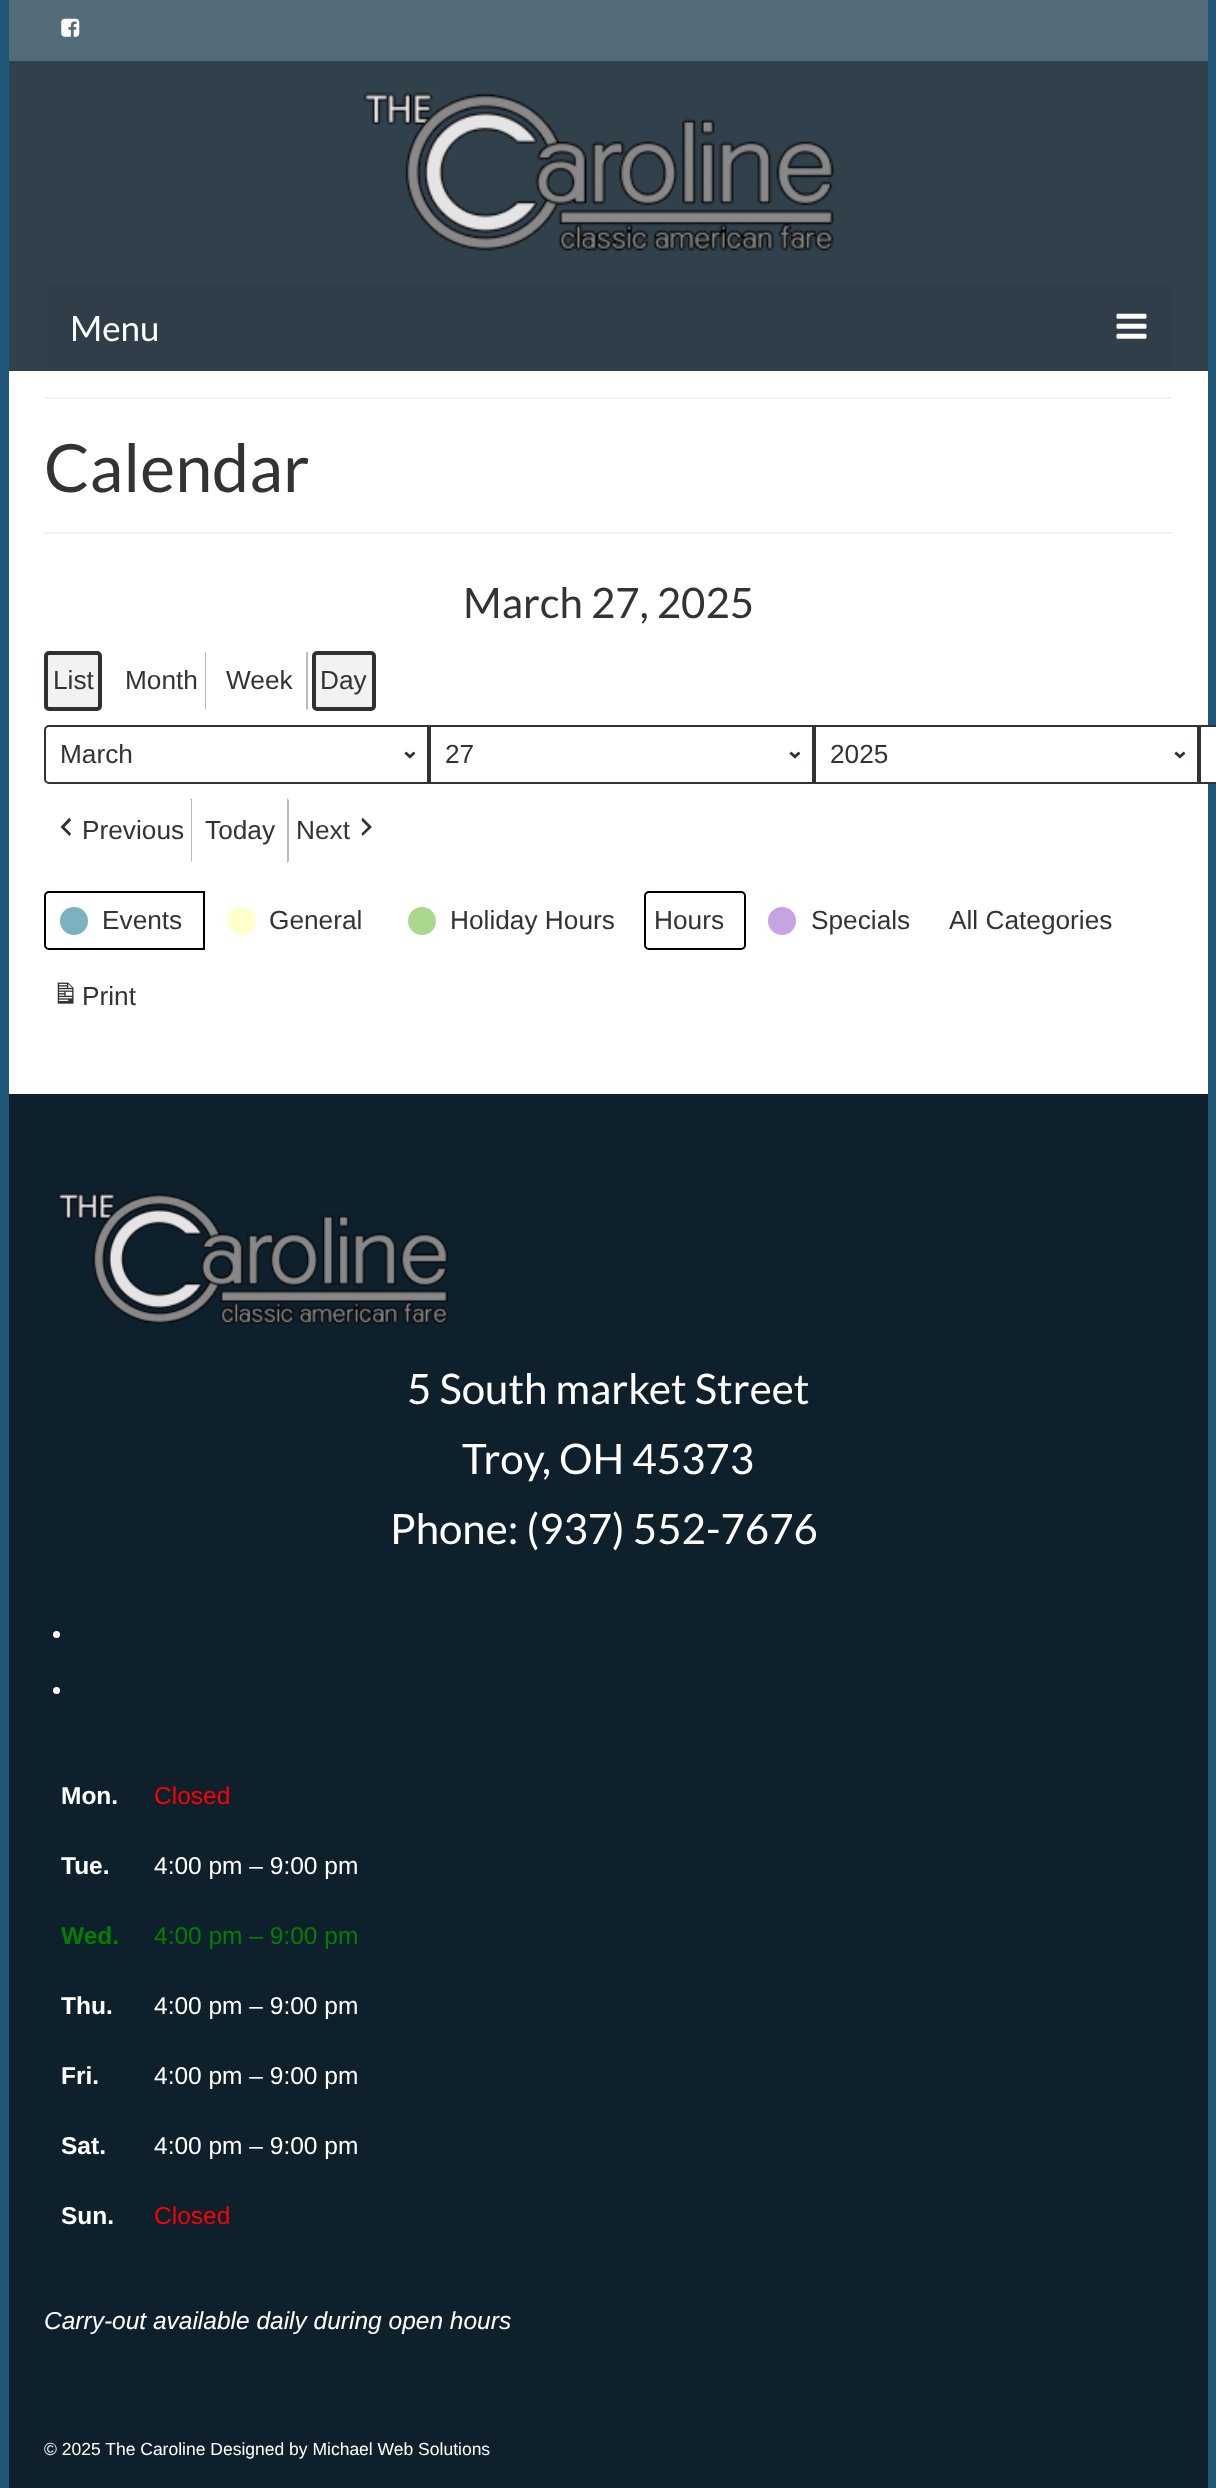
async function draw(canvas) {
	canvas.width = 1216;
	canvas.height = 2488;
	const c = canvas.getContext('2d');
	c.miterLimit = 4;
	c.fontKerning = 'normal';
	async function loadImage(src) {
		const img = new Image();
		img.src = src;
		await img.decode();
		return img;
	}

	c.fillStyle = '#215779';
	c.fillRect(0, 0, 1216, 2488);
	c.fillStyle = '#31414c';
	c.fillRect(9, 61, 1199, 310);
	c.fillStyle = '#546b79';
	c.fillRect(9, 0, 1199, 61);
	c.drawImage(await loadImage('img1.png'), 61, 18, 19, 19);
	c.drawImage(await loadImage('img2.png'), 363, 92, 471, 159);
	c.fillStyle = '#2f3e48';
	c.fillRect(44, 284, 1129, 87);
	c.font = '35px Lato';
	c.fillStyle = '#fff';
	c.fillText('Menu', 70, 341);
	c.drawImage(await loadImage('img3.png'), 1116, 313, 31, 26);
	for (const [x, y, w, h, color] of [
		[9, 371, 1199, 723, '#fff'],
		[44, 397, 1129, 2, '#f2f2f2'],
		[44, 532, 1129, 2, '#f2f2f2'],
	]) {
		c.fillStyle = color;
		c.fillRect(x, y, w, h);
	}
	c.font = '66.5px Lato';
	c.fillStyle = '#333';
	c.fillText('Calendar', 44, 492);
	c.font = '42px Lato';
	c.fillText('March 27, 2025', 463, 618);
	c.fillStyle = '#f2f2f2';
	c.beginPath();
	c.roundRect(44, 651, 58, 60, 5);
	c.fill();
	c.beginPath();
	c.roundRect(46, 653, 54, 56, 3);
	c.strokeStyle = '#2f3030';
	c.lineWidth = 4;
	c.stroke();
	c.font = '26.25px Liberation Sans';
	c.fillStyle = '#333';
	c.fillText('List', 53, 689);
	c.fillStyle = '#bbb';
	c.beginPath();
	c.moveTo(206, 652);
	c.lineTo(206, 710);
	c.lineTo(205, 709);
	c.lineTo(205, 653);
	c.lineTo(204, 653);
	c.closePath();
	c.fill();
	c.fillStyle = '#333';
	c.fillText('Month', 125, 689);
	c.fillStyle = '#bbb';
	c.beginPath();
	c.moveTo(308, 651);
	c.lineTo(308, 710);
	c.lineTo(306, 709);
	c.lineTo(306, 653);
	c.closePath();
	c.fill();
	c.fillStyle = '#333';
	c.fillText('Week', 226, 689);
	c.fillStyle = '#f2f2f2';
	c.beginPath();
	c.roundRect(312, 651, 64, 60, 5);
	c.fill();
	c.beginPath();
	c.roundRect(314, 653, 60, 56, 3);
	c.stroke();
	c.fillStyle = '#333';
	c.fillText('Day', 320, 689);
	c.drawImage(await loadImage('img4.png'), 404, 751, 11, 8);
	c.beginPath();
	c.roundRect(45, 726, 383, 57, [4, 0, 0, 4]);
	c.strokeStyle = '#313233';
	c.lineWidth = 2;
	c.stroke();
	c.fillText('March', 60, 763);
	c.drawImage(await loadImage('img4.png'), 789, 751, 11, 8);
	c.strokeRect(430, 726, 383, 57);
	c.fillText('27', 445, 763);
	c.drawImage(await loadImage('img4.png'), 1174, 751, 11, 8);
	c.strokeRect(815, 726, 383, 57);
	c.fillText('2025', 830, 763);
	c.fillStyle = '#fff';
	c.fillRect(1208, 727, 8, 55);
	c.strokeRect(1200, 726, 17, 57);
	c.fillStyle = '#bbb';
	c.beginPath();
	c.moveTo(192, 798);
	c.lineTo(192, 862);
	c.lineTo(191, 861);
	c.lineTo(191, 800);
	c.lineTo(190, 800);
	c.closePath();
	c.fill();
	c.fillStyle = '#313233';
	c.beginPath();
	c.moveTo(71, 820.5);
	c.lineTo(64.5, 827);
	c.lineTo(71, 833.5);
	c.lineTo(69.5, 836);
	c.lineTo(60.5, 827);
	c.lineTo(69.5, 817.5);
	c.closePath();
	c.fill();
	c.fillStyle = '#333';
	c.fillText('Previous', 82, 839);
	c.fillText('Today', 205, 839);
	c.fillStyle = '#bbb';
	c.beginPath();
	c.moveTo(287, 798);
	c.lineTo(287, 863);
	c.lineTo(289, 861);
	c.lineTo(289, 800);
	c.closePath();
	c.fill();
	c.fillStyle = '#333';
	c.fillText('Next', 296, 839);
	c.fillStyle = '#313233';
	c.beginPath();
	c.moveTo(361.5, 833.5);
	c.lineTo(368, 827);
	c.lineTo(361.5, 820.5);
	c.lineTo(362.5, 817.5);
	c.lineTo(372, 827);
	c.lineTo(362.5, 836);
	c.closePath();
	c.fill();
	c.beginPath();
	c.roundRect(45, 892, 159, 57, [4, 0, 0, 4]);
	c.strokeStyle = '#000';
	c.stroke();
	c.fillStyle = '#7db1c1';
	c.beginPath();
	c.arc(74, 921, 14, 0, 2 * Math.PI);
	c.fill();
	c.fillStyle = '#333';
	c.fillText('Events', 102, 929);
	c.fillStyle = '#ffc';
	c.beginPath();
	c.arc(242, 921, 14, 0, 2 * Math.PI);
	c.fill();
	c.fillStyle = '#333';
	c.fillText('General', 269, 929);
	c.fillStyle = '#abd68d';
	c.beginPath();
	c.arc(422, 921, 14, 0, 2 * Math.PI);
	c.fill();
	c.fillStyle = '#333';
	c.fillText('Holiday Hours', 450, 929);
	c.beginPath();
	c.roundRect(645, 892, 100, 57, 4);
	c.stroke();
	c.fillText('Hours', 654, 929);
	c.fillStyle = '#c6a3e2';
	c.beginPath();
	c.arc(782, 921, 14, 0, 2 * Math.PI);
	c.fill();
	c.fillStyle = '#333';
	c.fillText('Specials', 811, 929);
	c.fillText('All Categories', 949, 929);
	c.drawImage(await loadImage('img5.png'), 57, 982, 17, 22);
	c.fillText('Print', 82, 1005);
	c.fillStyle = '#0e202c';
	c.fillRect(9, 1094, 1199, 1394);
	c.drawImage(await loadImage('img6.png'), 58, 1193, 390, 131);
	c.font = '42px Lato';
	c.fillStyle = '#fff';
	for (const [text, x, y] of [
		['5 South market Street', 407, 1404],
		['Troy, OH 45373', 462, 1474],
		['Phone: (937) 552-7676', 390, 1544],
	]) {
		c.fillText(text, x, y);
	}
	c.beginPath();
	c.arc(56.5, 1634.5, 3.5, 0, 2 * Math.PI);
	c.fill();
	c.beginPath();
	c.arc(56.5, 1690.5, 3.5, 0, 2 * Math.PI);
	c.fill();
	c.font = 'bold 24.5px Liberation Sans';
	c.fillText('Mon.', 61, 1804);
	c.font = '24.5px Liberation Sans';
	c.fillStyle = '#f00';
	c.fillText('Closed', 154, 1804);
	c.font = 'bold 24.5px Liberation Sans';
	c.fillStyle = '#fff';
	c.fillText('Tue.', 61, 1874);
	c.font = '24.5px Liberation Sans';
	c.fillText('4:00 pm – 9:00 pm', 154, 1874);
	c.font = 'bold 24.5px Liberation Sans';
	c.fillStyle = '#008000';
	c.fillText('Wed.', 61, 1944);
	c.font = '24.5px Liberation Sans';
	c.fillText('4:00 pm – 9:00 pm', 154, 1944);
	c.font = 'bold 24.5px Liberation Sans';
	c.fillStyle = '#fff';
	c.fillText('Thu.', 61, 2014);
	c.font = '24.5px Liberation Sans';
	c.fillText('4:00 pm – 9:00 pm', 154, 2014);
	c.font = 'bold 24.5px Liberation Sans';
	c.fillText('Fri.', 61, 2084);
	c.font = '24.5px Liberation Sans';
	c.fillText('4:00 pm – 9:00 pm', 154, 2084);
	c.font = 'bold 24.5px Liberation Sans';
	c.fillText('Sat.', 61, 2154);
	c.font = '24.5px Liberation Sans';
	c.fillText('4:00 pm – 9:00 pm', 154, 2154);
	c.font = 'bold 24.5px Liberation Sans';
	c.fillText('Sun.', 61, 2224);
	c.font = '24.5px Liberation Sans';
	c.fillStyle = '#f00';
	c.fillText('Closed', 154, 2224);
	c.font = 'italic 24.5px Liberation Sans';
	c.fillStyle = '#fff';
	c.fillText('Carry-out available daily during open hours', 44, 2329);
	c.font = '17.5px Liberation Sans';
	c.fillText('© 2025 The Caroline Designed by Michael Web Solutions', 44, 2455);
}

draw(document.querySelector('canvas'));
